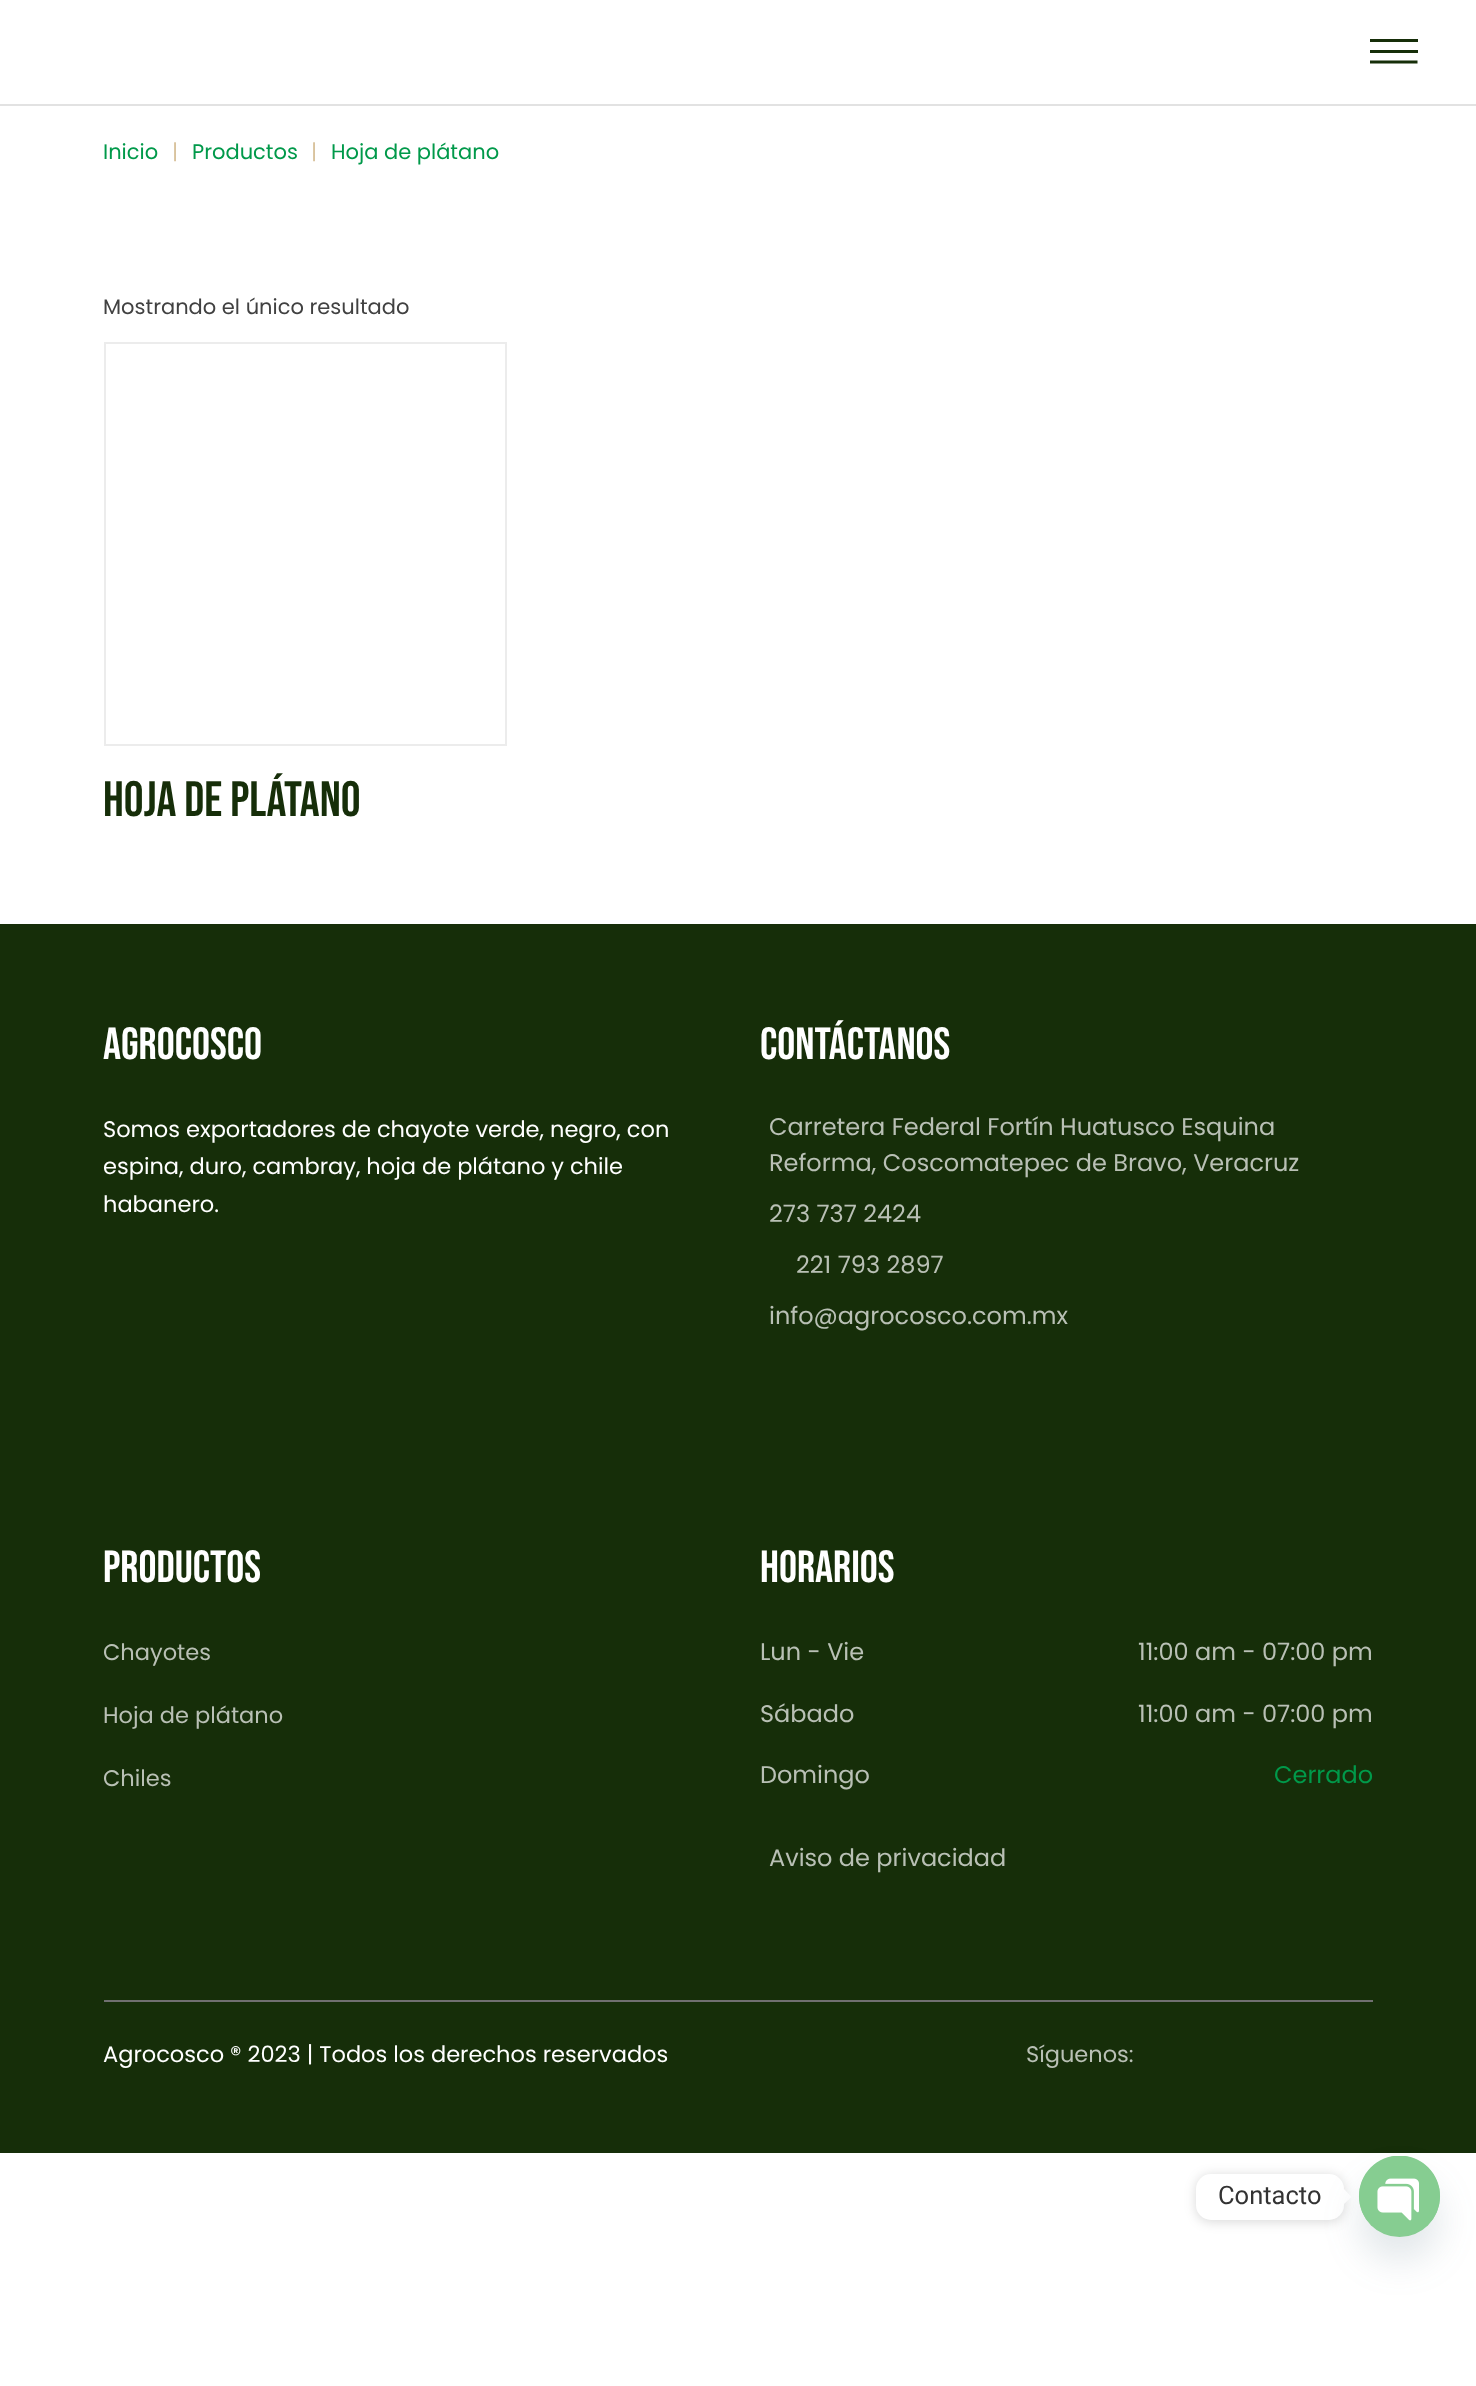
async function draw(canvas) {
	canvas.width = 1476;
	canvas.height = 2386;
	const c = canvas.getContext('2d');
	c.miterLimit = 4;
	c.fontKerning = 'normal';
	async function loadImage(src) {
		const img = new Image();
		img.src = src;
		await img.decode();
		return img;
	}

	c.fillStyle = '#fff';
	c.fillRect(0, 0, 1476, 2386);
	for (const [x, y, w, h, color] of [
		[0, 104, 1476, 2, '#e2e2e2'],
		[1370, 39, 48, 3, '#162e09'],
		[1370, 50, 48, 3, '#162e09'],
	]) {
		c.fillStyle = color;
		c.fillRect(x, y, w, h);
	}
	c.save();
	c.beginPath();
	c.rect(1370, 39, 48, 26);
	c.clip();
	c.beginPath();
	c.moveTo(1369.5, 62);
	c.lineTo(1417.5, 62);
	c.strokeStyle = '#162e09';
	c.lineWidth = 3.2;
	c.stroke();
	c.restore();
	c.font = '21px Poppins';
	c.fillStyle = '#00994a';
	c.fillText('Inicio', 103, 159);
	c.fillStyle = '#d9c39e';
	c.fillText('|', 172, 159);
	c.fillStyle = '#00994a';
	c.fillText('Productos', 192, 159);
	c.fillStyle = '#d9c39e';
	c.fillText('|', 311, 159);
	c.fillStyle = '#00994a';
	c.fillText('Hoja de plátano', 331, 159);
	c.fillStyle = '#414141';
	c.fillText('Mostrando el único resultado', 103, 314);
	c.strokeStyle = '#ececec';
	c.lineWidth = 2;
	c.strokeRect(105, 343, 401, 402);
	c.font = '49.5px Bebas Neue';
	c.fillStyle = '#162e09';
	c.fillText('HOJA DE PLÁTANO', 103, 816);
	c.fillRect(0, 924, 1476, 1229);
	c.font = '45px Bebas Neue';
	c.fillStyle = '#fff';
	c.fillText('AGROCOSCO', 103, 1059);
	c.font = '22.5px Poppins';
	for (const [text, x, y] of [
		['Somos exportadores de chayote verde, negro, con', 103, 1137],
		['espina, duro, cambray, hoja de plátano y chile', 103, 1174],
		['habanero.', 103, 1212],
	]) {
		c.fillText(text, x, y);
	}
	c.font = '45px Bebas Neue';
	c.fillText('CONTÁCTANOS', 760, 1059);
	c.font = '24px Poppins';
	c.fillStyle = '#b9c0b5';
	for (const [text, x, y] of [
		['Carretera Federal Fortín Huatusco Esquina', 769, 1135],
		['Reforma, Coscomatepec de Bravo, Veracruz', 769, 1171],
		['273 737 2424', 769, 1222],
		['221 793 2897', 796, 1273],
		['info@agrocosco.com.mx', 769, 1324],
	]) {
		c.fillText(text, x, y);
	}
	c.font = '45px Bebas Neue';
	c.fillStyle = '#fff';
	c.fillText('PRODUCTOS', 103, 1582);
	c.font = '22.5px Poppins';
	c.fillStyle = '#b9c0b5';
	for (const [text, x, y] of [
		['Chayotes', 103, 1660],
		['Hoja de plátano', 103, 1723],
		['Chiles', 103, 1786],
	]) {
		c.fillText(text, x, y);
	}
	c.font = '45px Bebas Neue';
	c.fillStyle = '#fff';
	c.fillText('HORARIOS', 760, 1582);
	c.font = '24px Poppins';
	c.fillStyle = '#b9c0b5';
	for (const [text, x, y] of [
		['Lun - Vie', 760, 1660],
		['11:00 am - 07:00 pm', 1138, 1660],
		['Sábado', 760, 1722],
		['11:00 am - 07:00 pm', 1138, 1722],
		['Domingo', 760, 1783],
	]) {
		c.fillText(text, x, y);
	}
	c.fillStyle = '#00994a';
	c.fillText('Cerrado', 1274, 1783);
	c.fillStyle = '#b9c0b5';
	c.fillText('Aviso de privacidad', 769, 1866);
	c.fillStyle = '#707070';
	c.fillRect(104, 2000, 1269, 2);
	c.font = '22.5px Poppins';
	c.fillStyle = '#fff';
	c.fillText('Agrocosco ® 2023 | Todos los derechos reservados', 103, 2062);
	c.fillStyle = '#b9c0b5';
	c.fillText('Síguenos:', 1026, 2062);
	c.fillStyle = '#00000026';
	c.filter = 'blur(6px)';
	c.beginPath();
	c.roundRect(1196, 2175, 148, 47, 15);
	c.fill();
	c.filter = 'none';
	c.fillStyle = '#fff';
	c.beginPath();
	c.roundRect(1196, 2174, 148, 46, 15);
	c.fill();
	c.font = '25.5px Roboto';
	c.fillStyle = '#333';
	c.fillText('Contacto', 1218, 2204);
	c.fillStyle = '#fff';
	c.beginPath();
	c.moveTo(1344, 2204);
	c.lineTo(1344, 2189);
	c.lineTo(1351.5, 2197);
	c.closePath();
	c.fill();
	c.fillStyle = '#49687e29';
	c.filter = 'blur(18px)';
	c.beginPath();
	c.roundRect(1359, 2180, 81, 81, 40.5);
	c.fill();
	c.filter = 'none';
	c.fillStyle = '#86cd91';
	c.beginPath();
	c.arc(1399.5, 2196.5, 40.5, 0, 2 * Math.PI);
	c.fill();
	c.drawImage(await loadImage('img1.png'), 1359, 2156, 81, 65);
}

draw(document.querySelector('canvas'));
